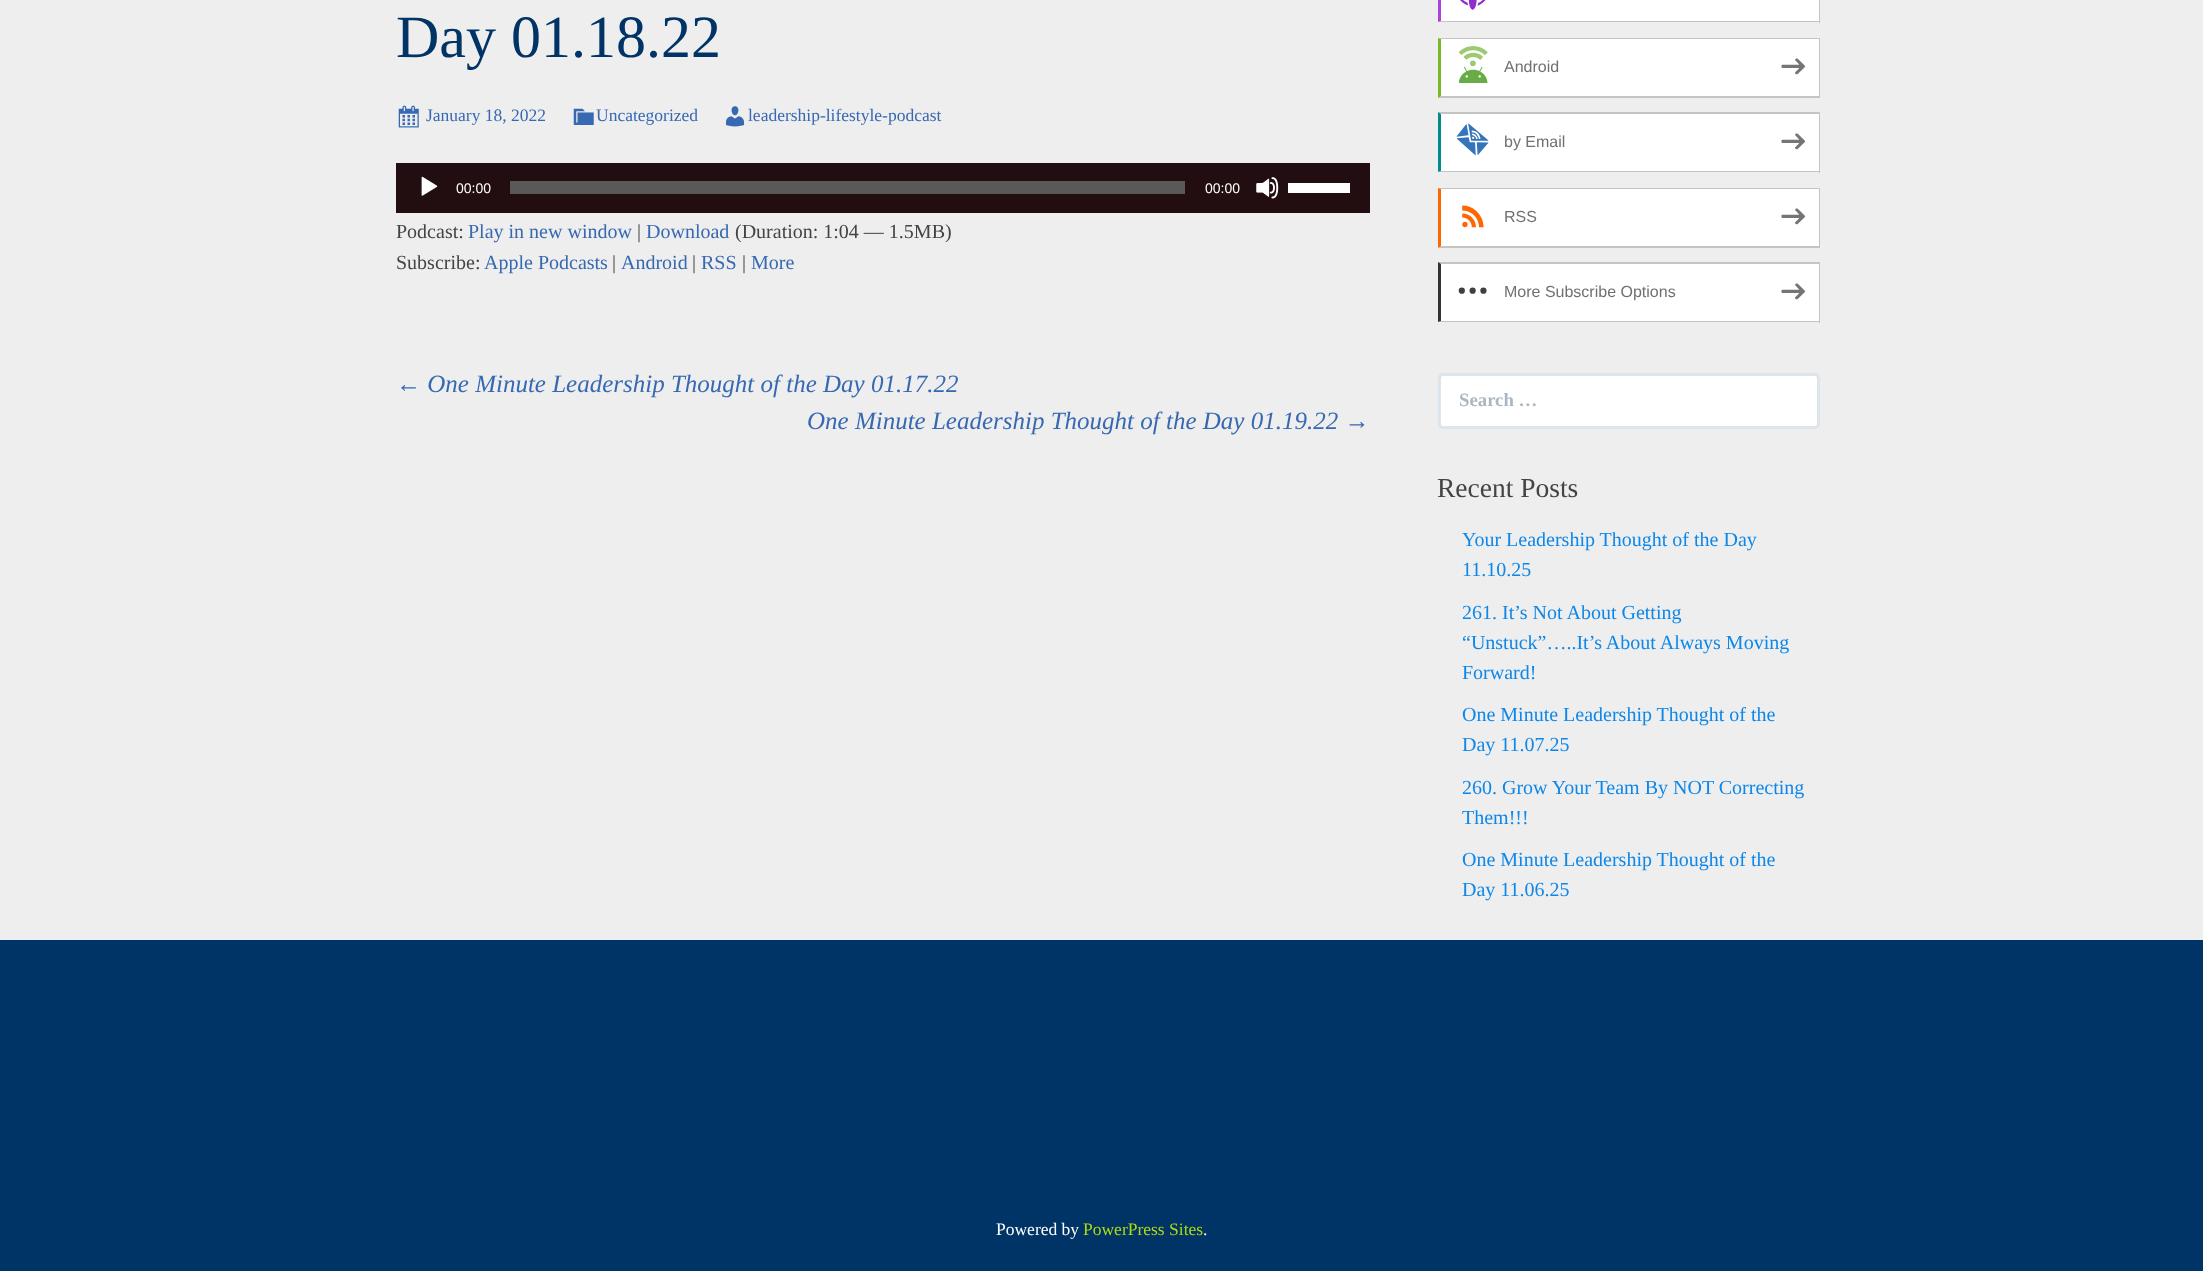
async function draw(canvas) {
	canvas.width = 2203;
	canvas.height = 1271;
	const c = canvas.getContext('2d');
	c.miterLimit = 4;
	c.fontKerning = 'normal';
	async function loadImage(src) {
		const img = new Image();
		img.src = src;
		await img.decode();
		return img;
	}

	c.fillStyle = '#eee';
	c.fillRect(0, 0, 2203, 1271);
	c.font = '60px Liberation Serif';
	c.fillStyle = '#036';
	c.fillText('Day 01.18.22', 396, 57);
	c.fillStyle = '#ecf0f1';
	c.fillRect(396, 89, 974, 1);
	c.drawImage(await loadImage('img1.png'), 398, 105, 21, 23);
	c.font = '17.5px Liberation Serif';
	c.fillStyle = '#3768b2';
	c.fillText('January 18, 2022', 426, 121);
	c.drawImage(await loadImage('img2.png'), 573, 108, 21, 17);
	c.fillText('Uncategorized', 596, 121);
	c.drawImage(await loadImage('img3.png'), 725, 106, 20, 21);
	c.fillText('leadership-lifestyle-podcast', 748, 121);
	c.fillStyle = '#ecf0f1';
	c.fillRect(396, 143, 974, 1);
	c.fillStyle = '#220e10';
	c.fillRect(396, 163, 974, 50);
	c.drawImage(await loadImage('img4.png'), 421, 176, 17, 20);
	c.font = '14px Liberation Sans';
	c.fillStyle = '#fff';
	c.fillText('00:00', 456, 193);
	c.fillStyle = '#595959';
	c.fillRect(510, 181, 675, 13);
	c.fillStyle = '#fff';
	c.fillText('00:00', 1205, 193);
	c.drawImage(await loadImage('img5.png'), 1256, 177, 23, 22);
	c.fillRect(1288, 183, 62, 10);
	c.font = '20px Liberation Serif';
	c.fillStyle = '#444';
	c.fillText('Podcast:', 396, 238);
	c.fillStyle = '#3768b2';
	c.fillText('Play in new window', 468, 238);
	c.fillStyle = '#444';
	c.fillText('|', 637, 238);
	c.fillStyle = '#3768b2';
	c.fillText('Download', 646, 238);
	c.fillStyle = '#444';
	c.fillText('(Duration: 1:04 — 1.5MB)', 735, 238);
	c.fillText('Subscribe:', 396, 269);
	c.fillStyle = '#3768b2';
	c.fillText('Apple Podcasts', 484, 269);
	c.fillStyle = '#444';
	c.fillText('|', 612, 269);
	c.fillStyle = '#3768b2';
	c.fillText('Android', 621, 269);
	c.fillStyle = '#444';
	c.fillText('|', 692, 269);
	c.fillStyle = '#3768b2';
	c.fillText('RSS', 701, 269);
	c.fillStyle = '#444';
	c.fillText('|', 742, 269);
	c.fillStyle = '#3768b2';
	c.fillText('More', 751, 269);
	c.fillStyle = '#ecf0f1';
	c.fillRect(396, 314, 974, 1);
	c.font = 'italic 25px Liberation Serif';
	c.fillStyle = '#3768b2';
	c.fillText('← One Minute Leadership Thought of the Day 01.17.22', 396, 392);
	c.fillText('One Minute Leadership Thought of the Day 01.19.22 →', 807, 429);
	c.fillStyle = '#fff';
	c.fillRect(1441, 0, 378, 21);
	c.fillStyle = '#c4c4c4';
	c.fillRect(1819, 0, 1, 23);
	c.beginPath();
	c.moveTo(1820, 22);
	c.lineTo(1438, 22);
	c.lineTo(1441, 21);
	c.lineTo(1819, 21);
	c.closePath();
	c.fill();
	c.fillStyle = '#ab42df';
	c.beginPath();
	c.moveTo(1438, 22);
	c.lineTo(1438, -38);
	c.lineTo(1441, -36);
	c.lineTo(1441, 21);
	c.closePath();
	c.fill();
	c.drawImage(await loadImage('img6.png'), 1460, 0, 26, 10);
	c.fillStyle = '#fff';
	c.fillRect(1441, 39, 378, 57);
	c.fillStyle = '#c4c4c4';
	c.beginPath();
	c.moveTo(1438, 38);
	c.lineTo(1820, 38);
	c.lineTo(1819, 39);
	c.lineTo(1441, 39);
	c.closePath();
	c.fill();
	c.fillRect(1819, 38, 1, 60);
	c.beginPath();
	c.moveTo(1820, 98);
	c.lineTo(1438, 98);
	c.lineTo(1441, 96);
	c.lineTo(1819, 96);
	c.closePath();
	c.fill();
	c.fillStyle = '#75ba26';
	c.beginPath();
	c.moveTo(1438, 98);
	c.lineTo(1438, 38);
	c.lineTo(1441, 39);
	c.lineTo(1441, 96);
	c.closePath();
	c.fill();
	c.drawImage(await loadImage('img7.png'), 1458, 46, 30, 37);
	c.font = '16px Liberation Sans';
	c.fillStyle = '#707070';
	c.fillText('Android', 1504, 72);
	c.drawImage(await loadImage('img8.png'), 1781, 58, 24, 17);
	c.fillStyle = '#fff';
	c.fillRect(1441, 114, 378, 57);
	c.fillStyle = '#c4c4c4';
	c.beginPath();
	c.moveTo(1438, 112);
	c.lineTo(1820, 112);
	c.lineTo(1819, 114);
	c.lineTo(1441, 114);
	c.closePath();
	c.fill();
	c.fillRect(1819, 113, 1, 60);
	c.beginPath();
	c.moveTo(1820, 172);
	c.lineTo(1438, 172);
	c.lineTo(1441, 171);
	c.lineTo(1819, 171);
	c.closePath();
	c.fill();
	c.fillStyle = '#018c8b';
	c.beginPath();
	c.moveTo(1438, 172);
	c.lineTo(1438, 112);
	c.lineTo(1441, 114);
	c.lineTo(1441, 171);
	c.closePath();
	c.fill();
	c.drawImage(await loadImage('img9.png'), 1456, 123, 33, 33);
	c.fillStyle = '#707070';
	c.fillText('by Email', 1504, 147);
	c.drawImage(await loadImage('img8.png'), 1781, 133, 24, 17);
	c.fillStyle = '#fff';
	c.fillRect(1441, 189, 378, 57);
	c.fillStyle = '#c4c4c4';
	c.beginPath();
	c.moveTo(1438, 188);
	c.lineTo(1820, 188);
	c.lineTo(1819, 189);
	c.lineTo(1441, 189);
	c.closePath();
	c.fill();
	c.fillRect(1819, 188, 1, 60);
	c.beginPath();
	c.moveTo(1820, 248);
	c.lineTo(1438, 248);
	c.lineTo(1441, 246);
	c.lineTo(1819, 246);
	c.closePath();
	c.fill();
	c.fillStyle = '#f60';
	c.beginPath();
	c.moveTo(1438, 248);
	c.lineTo(1438, 188);
	c.lineTo(1441, 189);
	c.lineTo(1441, 246);
	c.closePath();
	c.fill();
	c.drawImage(await loadImage('img10.png'), 1462, 205, 22, 23);
	c.fillStyle = '#707070';
	c.fillText('RSS', 1504, 222);
	c.drawImage(await loadImage('img8.png'), 1781, 208, 24, 17);
	c.fillStyle = '#fff';
	c.fillRect(1441, 264, 378, 57);
	c.fillStyle = '#c4c4c4';
	c.beginPath();
	c.moveTo(1438, 262);
	c.lineTo(1820, 262);
	c.lineTo(1819, 264);
	c.lineTo(1441, 264);
	c.closePath();
	c.fill();
	c.fillRect(1819, 263, 1, 60);
	c.beginPath();
	c.moveTo(1820, 322);
	c.lineTo(1438, 322);
	c.lineTo(1441, 321);
	c.lineTo(1819, 321);
	c.closePath();
	c.fill();
	c.fillStyle = '#333';
	c.beginPath();
	c.moveTo(1438, 322);
	c.lineTo(1438, 262);
	c.lineTo(1441, 264);
	c.lineTo(1441, 321);
	c.closePath();
	c.fill();
	c.drawImage(await loadImage('img11.png'), 1458, 287, 29, 7);
	c.fillStyle = '#707070';
	c.fillText('More Subscribe Options', 1504, 297);
	c.drawImage(await loadImage('img8.png'), 1781, 283, 24, 17);
	c.fillStyle = '#fff';
	c.beginPath();
	c.roundRect(1439.5, 374.5, 379, 53, 3.5);
	c.fill();
	c.strokeStyle = '#dce4ec';
	c.lineWidth = 3;
	c.stroke();
	c.font = 'bold 18.75px Liberation Serif';
	c.fillStyle = '#acb6c0';
	c.fillText('Search …', 1459, 406);
	c.font = '27.5px Liberation Serif';
	c.fillStyle = '#444';
	c.fillText('Recent Posts', 1437, 497);
	c.font = '20px Liberation Serif';
	c.fillStyle = '#0d87e9';
	for (const [text, x, y] of [
		['Your Leadership Thought of the Day', 1462, 546],
		['11.10.25', 1462, 576],
		['261. It’s Not About Getting', 1462, 619],
		['“Unstuck”…..It’s About Always Moving', 1462, 649],
		['Forward!', 1462, 679],
		['One Minute Leadership Thought of the', 1462, 721],
		['Day 11.07.25', 1462, 751],
		['260. Grow Your Team By NOT Correcting', 1462, 794],
		['Them!!!', 1462, 824],
		['One Minute Leadership Thought of the', 1462, 866],
		['Day 11.06.25', 1462, 896],
	]) {
		c.fillText(text, x, y);
	}
	c.fillStyle = '#036';
	c.fillRect(0, 940, 2203, 331);
	c.font = '17.5px Liberation Serif';
	c.fillStyle = '#fff';
	c.fillText('Powered by', 996, 1235);
	c.fillStyle = '#adda12';
	c.fillText('PowerPress Sites', 1083, 1235);
	c.fillStyle = '#fff';
	c.fillText('.', 1203, 1235);
}

draw(document.querySelector('canvas'));
